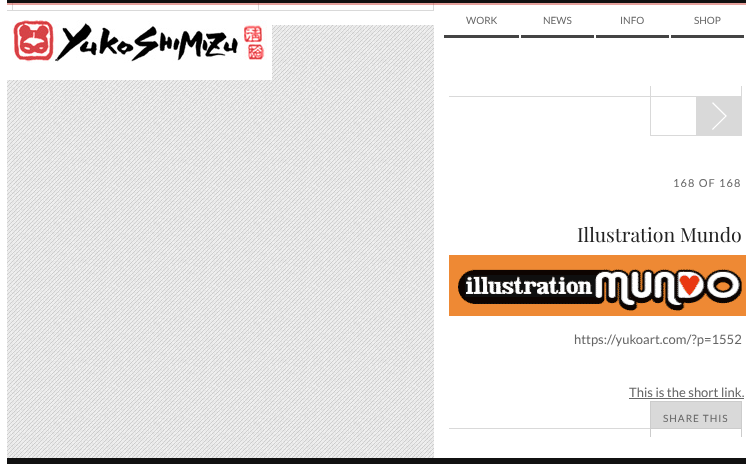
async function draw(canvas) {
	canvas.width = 746;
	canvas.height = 464;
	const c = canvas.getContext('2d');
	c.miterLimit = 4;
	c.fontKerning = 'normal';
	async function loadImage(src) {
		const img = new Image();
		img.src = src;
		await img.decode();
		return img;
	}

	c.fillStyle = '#fff';
	c.fillRect(0, 0, 746, 464);
	for (const [x, y, w, h, color] of [
		[7, 3, 739, 2, '#e6a19c'],
		[258, 0, 1, 10, '#d9d9d9'],
		[12, 0, 1, 10, '#d9d9d9'],
		[433, 0, 1, 10, '#d9d9d9'],
		[7, 0, 739, 3, '#111'],
	]) {
		c.fillStyle = color;
		c.fillRect(x, y, w, h);
	}
	c.drawImage(await loadImage('img2.png'), 7, 25, 427, 433);
	c.fillStyle = '#fff';
	c.fillRect(7, 25, 265, 55);
	c.drawImage(await loadImage('img1.png'), 12, 20, 255, 43);
	c.fillStyle = '#444';
	c.fillRect(444, 35, 75, 3);
	c.font = '10px Lato';
	c.fillStyle = '#666';
	c.fillText('WORK', 466, 24);
	c.fillStyle = '#444';
	c.fillRect(521, 35, 73, 3);
	c.fillStyle = '#666';
	c.fillText('NEWS', 543, 24);
	c.fillStyle = '#444';
	c.fillRect(596, 35, 73, 3);
	c.fillStyle = '#666';
	c.fillText('INFO', 620, 24);
	c.fillStyle = '#444';
	c.fillRect(671, 35, 73, 3);
	c.fillStyle = '#666';
	c.fillText('SHOP', 694, 24);
	for (const [x, y, w, h, color] of [
		[7, 10, 427, 1, '#d9d9d9'],
		[258, 3, 1, 2, '#d38e89'],
		[12, 3, 1, 2, '#d38e89'],
		[433, 3, 1, 2, '#d38e89'],
		[449, 96, 201, 1, '#d9d9d9'],
		[741, 86, 1, 50, '#d9d9d9'],
		[650, 96, 92, 1, '#d9d9d9'],
		[650, 86, 1, 11, '#d9d9d9'],
		[650, 135, 92, 1, '#d9d9d9'],
		[650, 97, 1, 39, '#d9d9d9'],
		[696, 97, 45, 38, '#d9d9d9'],
	]) {
		c.fillStyle = color;
		c.fillRect(x, y, w, h);
	}
	c.drawImage(await loadImage('img3.png'), 712, 102, 15, 28);
	c.letterSpacing = '1.1px';
	c.font = '11px Lato';
	c.fillStyle = '#666';
	c.fillText('168 OF 168', 673, 187);
	c.letterSpacing = '0px';
	c.font = '19.5px Playfair Display';
	c.fillStyle = '#222';
	c.fillText('Illustration Mundo', 577, 242);
	c.drawImage(await loadImage('img4.png'), 449, 255, 297, 61);
	c.font = '13px Lato';
	c.fillStyle = '#666';
	c.fillText('https://yukoart.com/?p=1552', 574, 344);
	c.fillText('This is the short link.', 629, 397);
	for (const [x, y, w, h, color] of [
		[629, 398, 115, 1, '#666'],
		[650, 401, 92, 1, '#ccc'],
		[741, 401, 1, 27, '#ccc'],
		[650, 401, 1, 27, '#ccc'],
		[651, 402, 90, 26, '#d9d9d9'],
	]) {
		c.fillStyle = color;
		c.fillRect(x, y, w, h);
	}
	c.letterSpacing = '1px';
	c.font = '10px Lato';
	c.fillStyle = '#666';
	c.fillText('SHARE THIS', 663, 422);
	for (const [x, y, w, h, color] of [
		[449, 428, 201, 1, '#d9d9d9'],
		[650, 428, 92, 1, '#ccc'],
		[741, 428, 1, 11, '#ccc'],
		[650, 428, 1, 11, '#ccc'],
		[650, 437, 92, 2, '#fff'],
		[7, 458, 739, 6, '#111'],
	]) {
		c.fillStyle = color;
		c.fillRect(x, y, w, h);
	}
}

draw(document.querySelector('canvas'));
